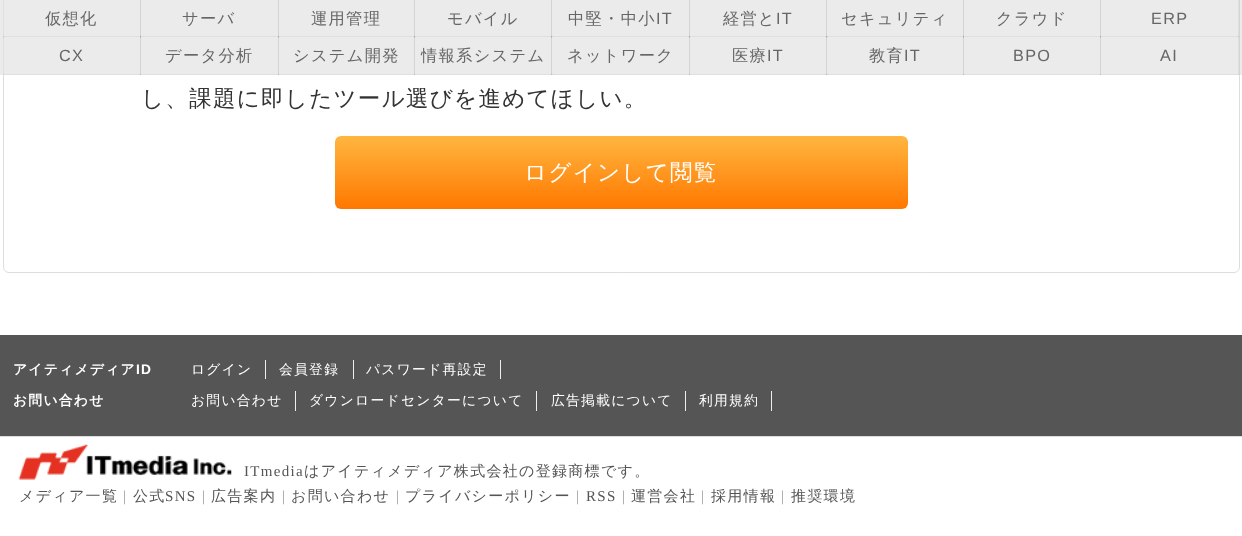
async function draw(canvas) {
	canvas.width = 1242;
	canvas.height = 536;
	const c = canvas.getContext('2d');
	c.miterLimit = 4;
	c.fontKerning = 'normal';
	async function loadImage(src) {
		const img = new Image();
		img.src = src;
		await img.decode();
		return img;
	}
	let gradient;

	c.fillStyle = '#fff';
	c.fillRect(0, 0, 1242, 536);
	c.beginPath();
	c.roundRect(3.5, -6.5, 1236, 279, 5.5);
	c.strokeStyle = '#ddd';
	c.stroke();
	for (const [x, y, w, h, color] of [
		[0, 0, 1242, 75, '#ecebeb'],
		[1100, 0, 1, 38, '#d5d4d4'],
		[1100, 36, 139, 1, '#e0dfdf'],
		[1238, 0, 1, 38, '#e0dfdf'],
		[963, 74, 138, 1, '#e0dfdf'],
		[1100, 36, 1, 39, '#d5d4d4'],
		[1100, 36, 1, 2, '#c0bfbf'],
		[1100, 36, 1, 1, '#b6b5b5'],
		[1100, 74, 139, 1, '#e0dfdf'],
		[1100, 74, 1, 1, '#c0bfbf'],
		[1239, 0, 1, 75, '#d4d4d4'],
		[963, 36, 1, 39, '#0000000d'],
		[963, 36, 1, 39, '#0000000d'],
		[963, 36, 138, 1, '#0000000d'],
		[963, 0, 1, 38, '#0000000d'],
		[963, 0, 1, 38, '#0000000d'],
		[826, 74, 138, 1, '#0000000d'],
		[826, 36, 1, 39, '#0000000d'],
		[826, 36, 1, 39, '#0000000d'],
		[826, 36, 138, 1, '#0000000d'],
		[826, 0, 1, 38, '#0000000d'],
		[826, 0, 1, 38, '#0000000d'],
		[689, 74, 139, 1, '#0000000d'],
		[689, 36, 1, 39, '#0000000d'],
		[689, 36, 1, 39, '#0000000d'],
		[689, 36, 139, 1, '#0000000d'],
		[689, 0, 1, 38, '#0000000d'],
		[689, 0, 1, 38, '#0000000d'],
		[551, 74, 139, 1, '#0000000d'],
		[551, 36, 1, 39, '#0000000d'],
		[551, 36, 1, 39, '#0000000d'],
		[551, 36, 139, 1, '#0000000d'],
		[551, 0, 1, 38, '#0000000d'],
		[551, 0, 1, 38, '#0000000d'],
		[414, 74, 139, 1, '#0000000d'],
		[414, 36, 1, 39, '#0000000d'],
		[414, 36, 1, 39, '#0000000d'],
		[414, 36, 139, 1, '#0000000d'],
		[414, 0, 1, 38, '#0000000d'],
		[414, 0, 1, 38, '#0000000d'],
		[278, 74, 137, 1, '#0000000d'],
		[278, 36, 1, 39, '#0000000d'],
		[278, 36, 1, 39, '#0000000d'],
		[278, 36, 137, 1, '#0000000d'],
		[278, 0, 1, 38, '#0000000d'],
		[278, 0, 1, 38, '#0000000d'],
		[140, 74, 139, 1, '#0000000d'],
		[140, 36, 1, 39, '#0000000d'],
		[140, 36, 1, 39, '#0000000d'],
		[140, 36, 139, 1, '#0000000d'],
		[140, 0, 1, 38, '#0000000d'],
		[140, 0, 1, 38, '#0000000d'],
		[3, 74, 138, 1, '#0000000d'],
		[3, 36, 1, 39, '#0000000d'],
		[3, 36, 138, 1, '#0000000d'],
		[3, 0, 1, 38, '#0000000d'],
	]) {
		c.fillStyle = color;
		c.fillRect(x, y, w, h);
	}
	c.letterSpacing = '1.3px';
	c.font = '500 16.25px WenQuanYi Zen Hei';
	c.fillStyle = '#666';
	for (const [text, x, y] of [
		['仮想化', 45, 24],
		['サーバ', 182, 24],
		['運用管理', 311, 24],
		['モバイル', 447, 24],
		['中堅・中小', 568, 24],
	]) {
		c.fillText(text, x, y);
	}
	c.font = '16.25px Liberation Sans';
	c.fillText('IT', 656, 24);
	c.font = '500 16.25px WenQuanYi Zen Hei';
	c.fillText('経営と', 723, 24);
	c.font = '16.25px Liberation Sans';
	c.fillText('IT', 776, 24);
	c.font = '500 16.25px WenQuanYi Zen Hei';
	c.fillText('セキュリティ', 841, 24);
	c.fillText('クラウド', 996, 24);
	c.font = '16.25px Liberation Sans';
	c.fillText('ERP', 1151, 24);
	c.fillText('CX', 59, 61);
	c.font = '500 16.25px WenQuanYi Zen Hei';
	for (const [text, x, y] of [
		['データ分析', 165, 61],
		['システム開発', 293, 61],
		['情報系システム', 421, 61],
		['ネットワーク', 567, 61],
		['医療', 732, 61],
	]) {
		c.fillText(text, x, y);
	}
	c.font = '16.25px Liberation Sans';
	c.fillText('IT', 767, 61);
	c.font = '500 16.25px WenQuanYi Zen Hei';
	c.fillText('教育', 869, 61);
	c.font = '16.25px Liberation Sans';
	c.fillText('IT', 904, 61);
	c.fillText('BPO', 1013, 61);
	for (const [x, y, w, h, color] of [
		[1238, 36, 1, 39, '#e0dfdf'],
		[1238, 36, 1, 2, '#d5d4d4'],
		[1238, 36, 1, 1, '#cac9c9'],
		[1238, 74, 1, 1, '#d5d4d4'],
	]) {
		c.fillStyle = color;
		c.fillRect(x, y, w, h);
	}
	c.fillStyle = '#666';
	c.fillText('AI', 1160, 61);
	c.font = '500 22.5px WenQuanYi Zen Hei';
	c.fillStyle = '#333';
	c.fillText('し、課題に即したツール選びを進めてほしい。', 141, 106);
	gradient = c.createLinearGradient(621, 136, 621, 209);
	gradient.addColorStop(0, '#ffb640');
	gradient.addColorStop(1, '#ff7800');
	c.fillStyle = gradient;
	c.beginPath();
	c.roundRect(335, 136, 573, 73, 6);
	c.fill();
	c.fillStyle = '#fff';
	c.fillText('ログインして閲覧', 524, 180);
	c.fillStyle = '#555';
	c.fillRect(0, 335, 1242, 101);
	c.font = 'bold 13.75px WenQuanYi Zen Hei';
	c.fillStyle = '#fff';
	c.fillText('アイティメディア', 13, 374);
	c.font = 'bold 13.75px Liberation Sans';
	c.fillText('ID', 136, 374);
	c.fillStyle = '#eee';
	c.fillRect(265, 360, 1, 19);
	c.font = '500 13.75px WenQuanYi Zen Hei';
	c.fillStyle = '#fff';
	c.fillText('ログイン', 191, 374);
	c.fillStyle = '#eee';
	c.fillRect(353, 360, 1, 19);
	c.fillStyle = '#fff';
	c.fillText('会員登録', 279, 374);
	c.fillStyle = '#eee';
	c.fillRect(500, 360, 1, 19);
	c.fillStyle = '#fff';
	c.fillText('パスワード再設定', 366, 374);
	c.font = 'bold 13.75px WenQuanYi Zen Hei';
	c.fillText('お問い合わせ', 13, 405);
	c.fillStyle = '#eee';
	c.fillRect(295, 391, 1, 20);
	c.font = '500 13.75px WenQuanYi Zen Hei';
	c.fillStyle = '#fff';
	c.fillText('お問い合わせ', 191, 405);
	c.fillStyle = '#eee';
	c.fillRect(536, 391, 1, 20);
	c.fillStyle = '#fff';
	c.fillText('ダウンロードセンターについて', 309, 405);
	c.fillStyle = '#eee';
	c.fillRect(685, 391, 1, 20);
	c.fillStyle = '#fff';
	c.fillText('広告掲載について', 551, 405);
	c.fillStyle = '#eee';
	c.fillRect(771, 391, 1, 20);
	c.fillStyle = '#fff';
	c.fillText('利用規約', 699, 405);
	c.fillStyle = '#ddd';
	c.fillRect(0, 436, 1242, 1);
	c.drawImage(await loadImage('img1.png'), 18, 444, 214, 36);
	c.font = '15px Liberation Serif';
	c.fillStyle = '#555';
	c.fillText('ITmedia', 244, 476);
	c.font = '500 15px WenQuanYi Zen Hei';
	c.fillText('はアイティメディア株式会社の登録商標です。', 304, 476);
	c.fillText('メディア一覧', 19, 501);
	c.font = '15px Liberation Serif';
	c.fillStyle = '#999';
	c.fillText('|', 123, 501);
	c.font = '500 15px WenQuanYi Zen Hei';
	c.fillStyle = '#555';
	c.fillText('公式', 133, 501);
	c.font = '15px Liberation Serif';
	c.fillText('SNS', 165, 501);
	c.fillStyle = '#999';
	c.fillText('|', 202, 501);
	c.font = '500 15px WenQuanYi Zen Hei';
	c.fillStyle = '#555';
	c.fillText('広告案内', 211, 501);
	c.font = '15px Liberation Serif';
	c.fillStyle = '#999';
	c.fillText('|', 282, 501);
	c.font = '500 15px WenQuanYi Zen Hei';
	c.fillStyle = '#555';
	c.fillText('お問い合わせ', 291, 501);
	c.font = '15px Liberation Serif';
	c.fillStyle = '#999';
	c.fillText('|', 396, 501);
	c.font = '500 15px WenQuanYi Zen Hei';
	c.fillStyle = '#555';
	c.fillText('プライバシーポリシー', 405, 501);
	c.font = '15px Liberation Serif';
	c.fillStyle = '#999';
	c.fillText('|', 576, 501);
	c.fillStyle = '#555';
	c.fillText('RSS', 586, 501);
	c.fillStyle = '#999';
	c.fillText('|', 622, 501);
	c.font = '500 15px WenQuanYi Zen Hei';
	c.fillStyle = '#555';
	c.fillText('運営会社', 631, 501);
	c.font = '15px Liberation Serif';
	c.fillStyle = '#999';
	c.fillText('|', 701, 501);
	c.font = '500 15px WenQuanYi Zen Hei';
	c.fillStyle = '#555';
	c.fillText('採用情報', 711, 501);
	c.font = '15px Liberation Serif';
	c.fillStyle = '#999';
	c.fillText('|', 781, 501);
	c.font = '500 15px WenQuanYi Zen Hei';
	c.fillStyle = '#555';
	c.fillText('推奨環境', 791, 501);
}

draw(document.querySelector('canvas'));
